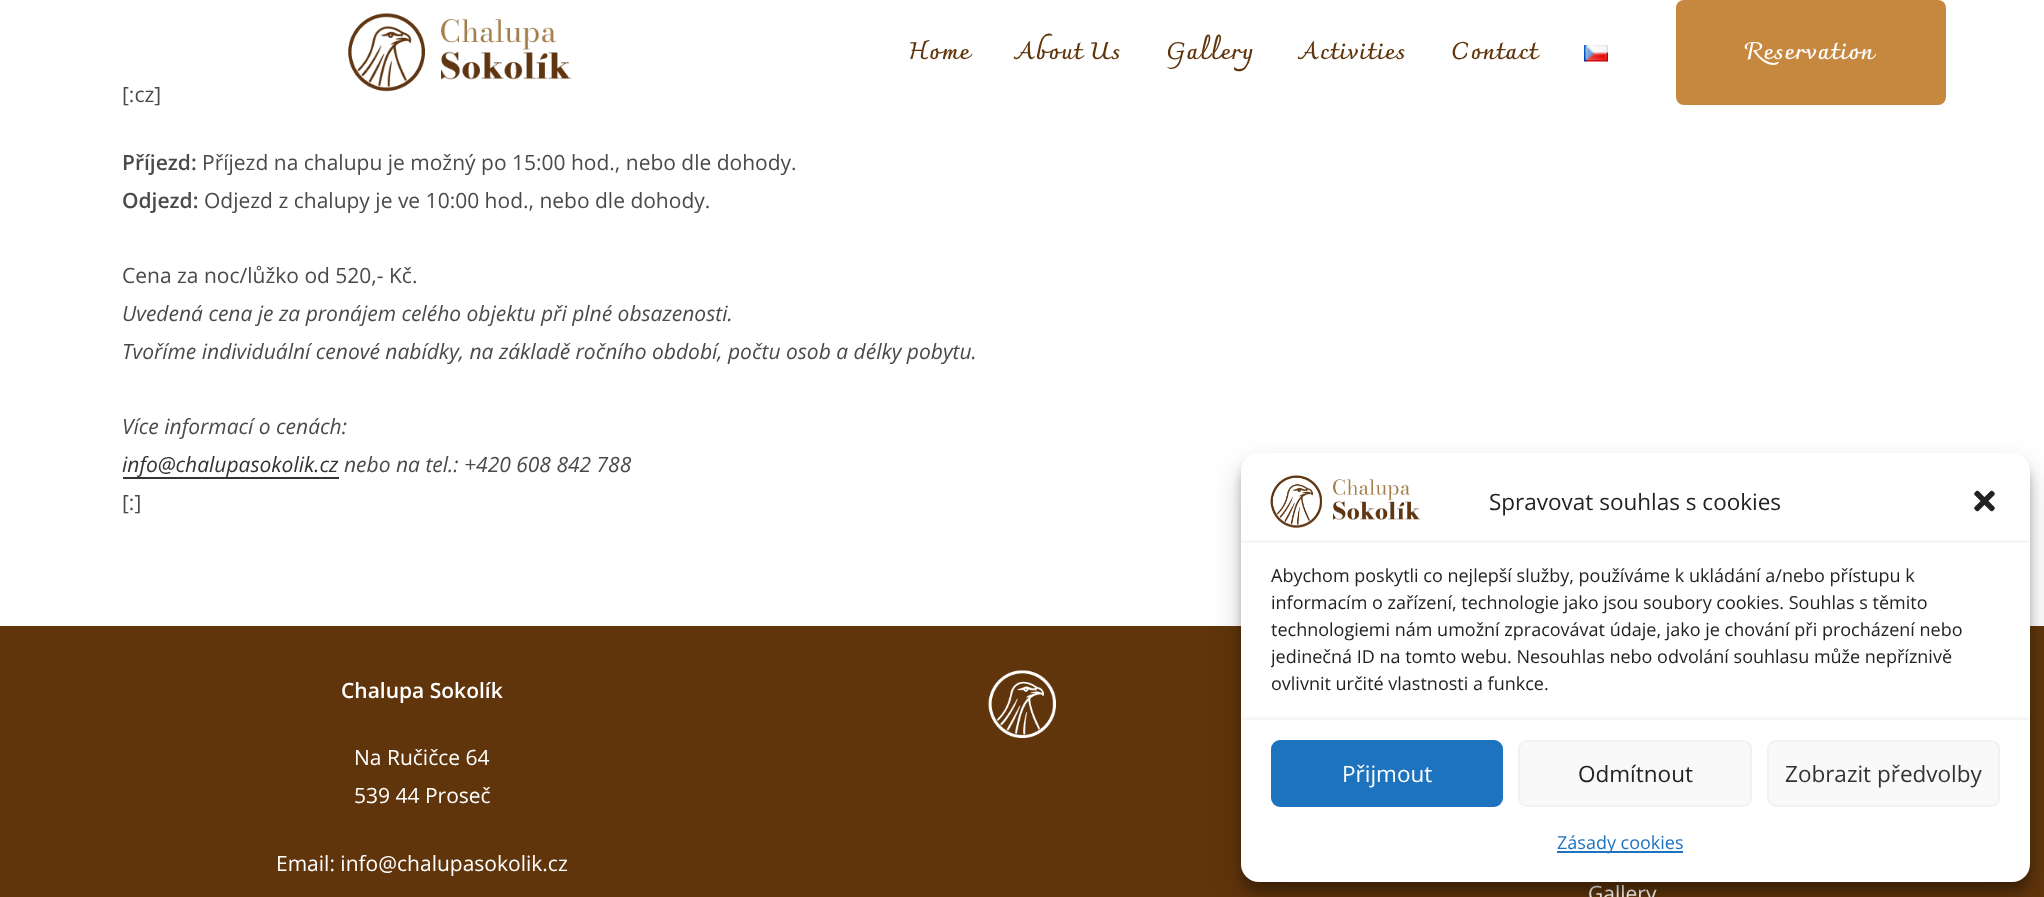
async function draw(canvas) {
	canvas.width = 2044;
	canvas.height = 897;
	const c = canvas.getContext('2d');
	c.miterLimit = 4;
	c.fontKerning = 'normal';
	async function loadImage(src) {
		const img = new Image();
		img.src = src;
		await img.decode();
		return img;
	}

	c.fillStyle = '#fff';
	c.fillRect(0, 0, 2044, 897);
	c.drawImage(await loadImage('img1.png'), 348, 13, 224, 79);
	c.letterSpacing = '0.9px';
	c.font = 'bold 24px Charmonman';
	c.fillStyle = '#60350c';
	for (const [text, x, y] of [
		['Home', 908, 59],
		['About Us', 1015, 59],
		['Gallery', 1166, 59],
		['Activities', 1299, 59],
		['Contact', 1451, 59],
	]) {
		c.fillText(text, x, y);
	}
	c.drawImage(await loadImage('img2.png'), 1584, 45, 24, 17);
	c.fillStyle = '#c6883f';
	c.beginPath();
	c.roundRect(1676, 0, 270, 105, 8);
	c.fill();
	c.fillStyle = '#fff';
	c.fillText('Reservation', 1745, 59);
	c.letterSpacing = '0px';
	c.font = '21px Open Sans';
	c.fillStyle = '#4a4a4a';
	c.fillText('[:cz]', 122, 102);
	c.font = '600 21px Open Sans';
	c.fillText('Příjezd:', 122, 170);
	c.font = '21px Open Sans';
	c.fillText('Příjezd na chalupu je možný po 15:00 hod., nebo dle dohody.', 202, 170);
	c.font = '600 21px Open Sans';
	c.fillText('Odjezd:', 122, 208);
	c.font = '21px Open Sans';
	c.fillText('Odjezd z chalupy je ve 10:00 hod., nebo dle dohody.', 204, 208);
	c.fillText('Cena za noc/lůžko od 520,- Kč.', 122, 283);
	c.font = 'italic 21px Open Sans';
	for (const [text, x, y] of [
		['Uvedená cena je za pronájem celého objektu při plné obsazenosti.', 122, 321],
		['Tvoříme individuální cenové nabídky, na základě ročního období, počtu osob a délky pobytu.', 122, 359],
		['Více informací o cenách:', 122, 434],
	]) {
		c.fillText(text, x, y);
	}
	c.fillStyle = '#333';
	c.fillRect(123, 477, 216, 2);
	c.fillText('info@chalupasokolik.cz', 122, 472);
	c.fillStyle = '#4a4a4a';
	c.fillText('nebo na tel.: +420 608 842 788', 344, 472);
	c.font = '21px Open Sans';
	c.fillText('[:]', 122, 510);
	c.fillStyle = '#60350c';
	c.fillRect(0, 626, 2044, 271);
	c.font = '600 21px Open Sans';
	c.fillStyle = '#fff';
	c.fillText('Chalupa Sokolík', 341, 698);
	c.font = '21px Open Sans';
	for (const [text, x, y] of [
		['Na Ručičce 64', 354, 765],
		['539 44 Proseč', 354, 803],
		['Email: info@chalupasokolik.cz', 276, 871],
	]) {
		c.fillText(text, x, y);
	}
	c.drawImage(await loadImage('img3.png'), 988, 670, 68, 68);
	c.fillText('Gallery', 1588, 901);
	c.fillStyle = '#0000003b';
	c.filter = 'blur(4.5px)';
	c.beginPath();
	c.roundRect(1241, 462, 789, 429, 18);
	c.fill();
	c.filter = 'none';
	c.fillStyle = '#00000030';
	c.filter = 'blur(15px)';
	c.beginPath();
	c.roundRect(1241, 468, 789, 429, 18);
	c.fill();
	c.filter = 'none';
	c.fillStyle = '#fff';
	c.beginPath();
	c.roundRect(1241, 453, 789, 429, 18);
	c.fill();
	c.drawImage(await loadImage('img4.png'), 1270, 475, 151, 53);
	c.font = '22.5px Open Sans';
	c.fillStyle = '#222';
	c.fillText('Spravovat souhlas s cookies', 1489, 510);
	c.drawImage(await loadImage('img5.png'), 1974, 490, 21, 22);
	c.save();
	c.beginPath();
	c.rect(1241, 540, 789, 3);
	c.clip();
	c.fillStyle = '#0000000d';
	c.filter = 'blur(2px)';
	c.beginPath();
	c.rect(1241, 540, 789, 5);
	c.fill();
	c.filter = 'none';
	c.restore();
	c.font = '18px Open Sans';
	for (const [text, x, y] of [
		['Abychom poskytli co nejlepší služby, používáme k ukládání a/nebo přístupu k', 1271, 582],
		['informacím o zařízení, technologie jako jsou soubory cookies. Souhlas s těmito', 1271, 609],
		['technologiemi nám umožní zpracovávat údaje, jako je chování při procházení nebo', 1271, 636],
	]) {
		c.fillText(text, x, y);
	}
	c.save();
	c.beginPath();
	c.rect(1271, 563, 729, 142);
	c.clip();
	c.fillText('jedinečná ID na tomto webu. Nesouhlas nebo odvolání souhlasu může nepříznivě', 1271, 663);
	c.restore();
	c.fillText('ovlivnit určité vlastnosti a funkce.', 1271, 690);
	c.save();
	c.beginPath();
	c.rect(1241, 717, 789, 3);
	c.clip();
	c.fillStyle = '#0000000d';
	c.filter = 'blur(2px)';
	c.beginPath();
	c.rect(1241, 717, 789, 5);
	c.fill();
	c.filter = 'none';
	c.restore();
	c.fillStyle = '#1e73be';
	c.beginPath();
	c.roundRect(1272, 741, 230, 65, 8);
	c.fill();
	c.strokeStyle = '#1e73be';
	c.lineWidth = 2;
	c.stroke();
	c.font = '22.5px Open Sans';
	c.fillStyle = '#fff';
	c.fillText('Přijmout', 1342, 782);
	c.fillStyle = '#f9f9f9';
	c.beginPath();
	c.roundRect(1519, 741, 232, 65, 8);
	c.fill();
	c.strokeStyle = '#f2f2f2';
	c.stroke();
	c.fillStyle = '#222';
	c.fillText('Odmítnout', 1578, 782);
	c.fillStyle = '#f9f9f9';
	c.beginPath();
	c.roundRect(1768, 741, 231, 65, 8);
	c.fill();
	c.stroke();
	c.fillStyle = '#333';
	c.fillText('Zobrazit předvolby', 1785, 782);
	c.fillStyle = '#1e73be';
	c.fillRect(1557, 851, 126, 2);
	c.font = '18px Open Sans';
	c.fillText('Zásady cookies', 1557, 849);
}

draw(document.querySelector('canvas'));
